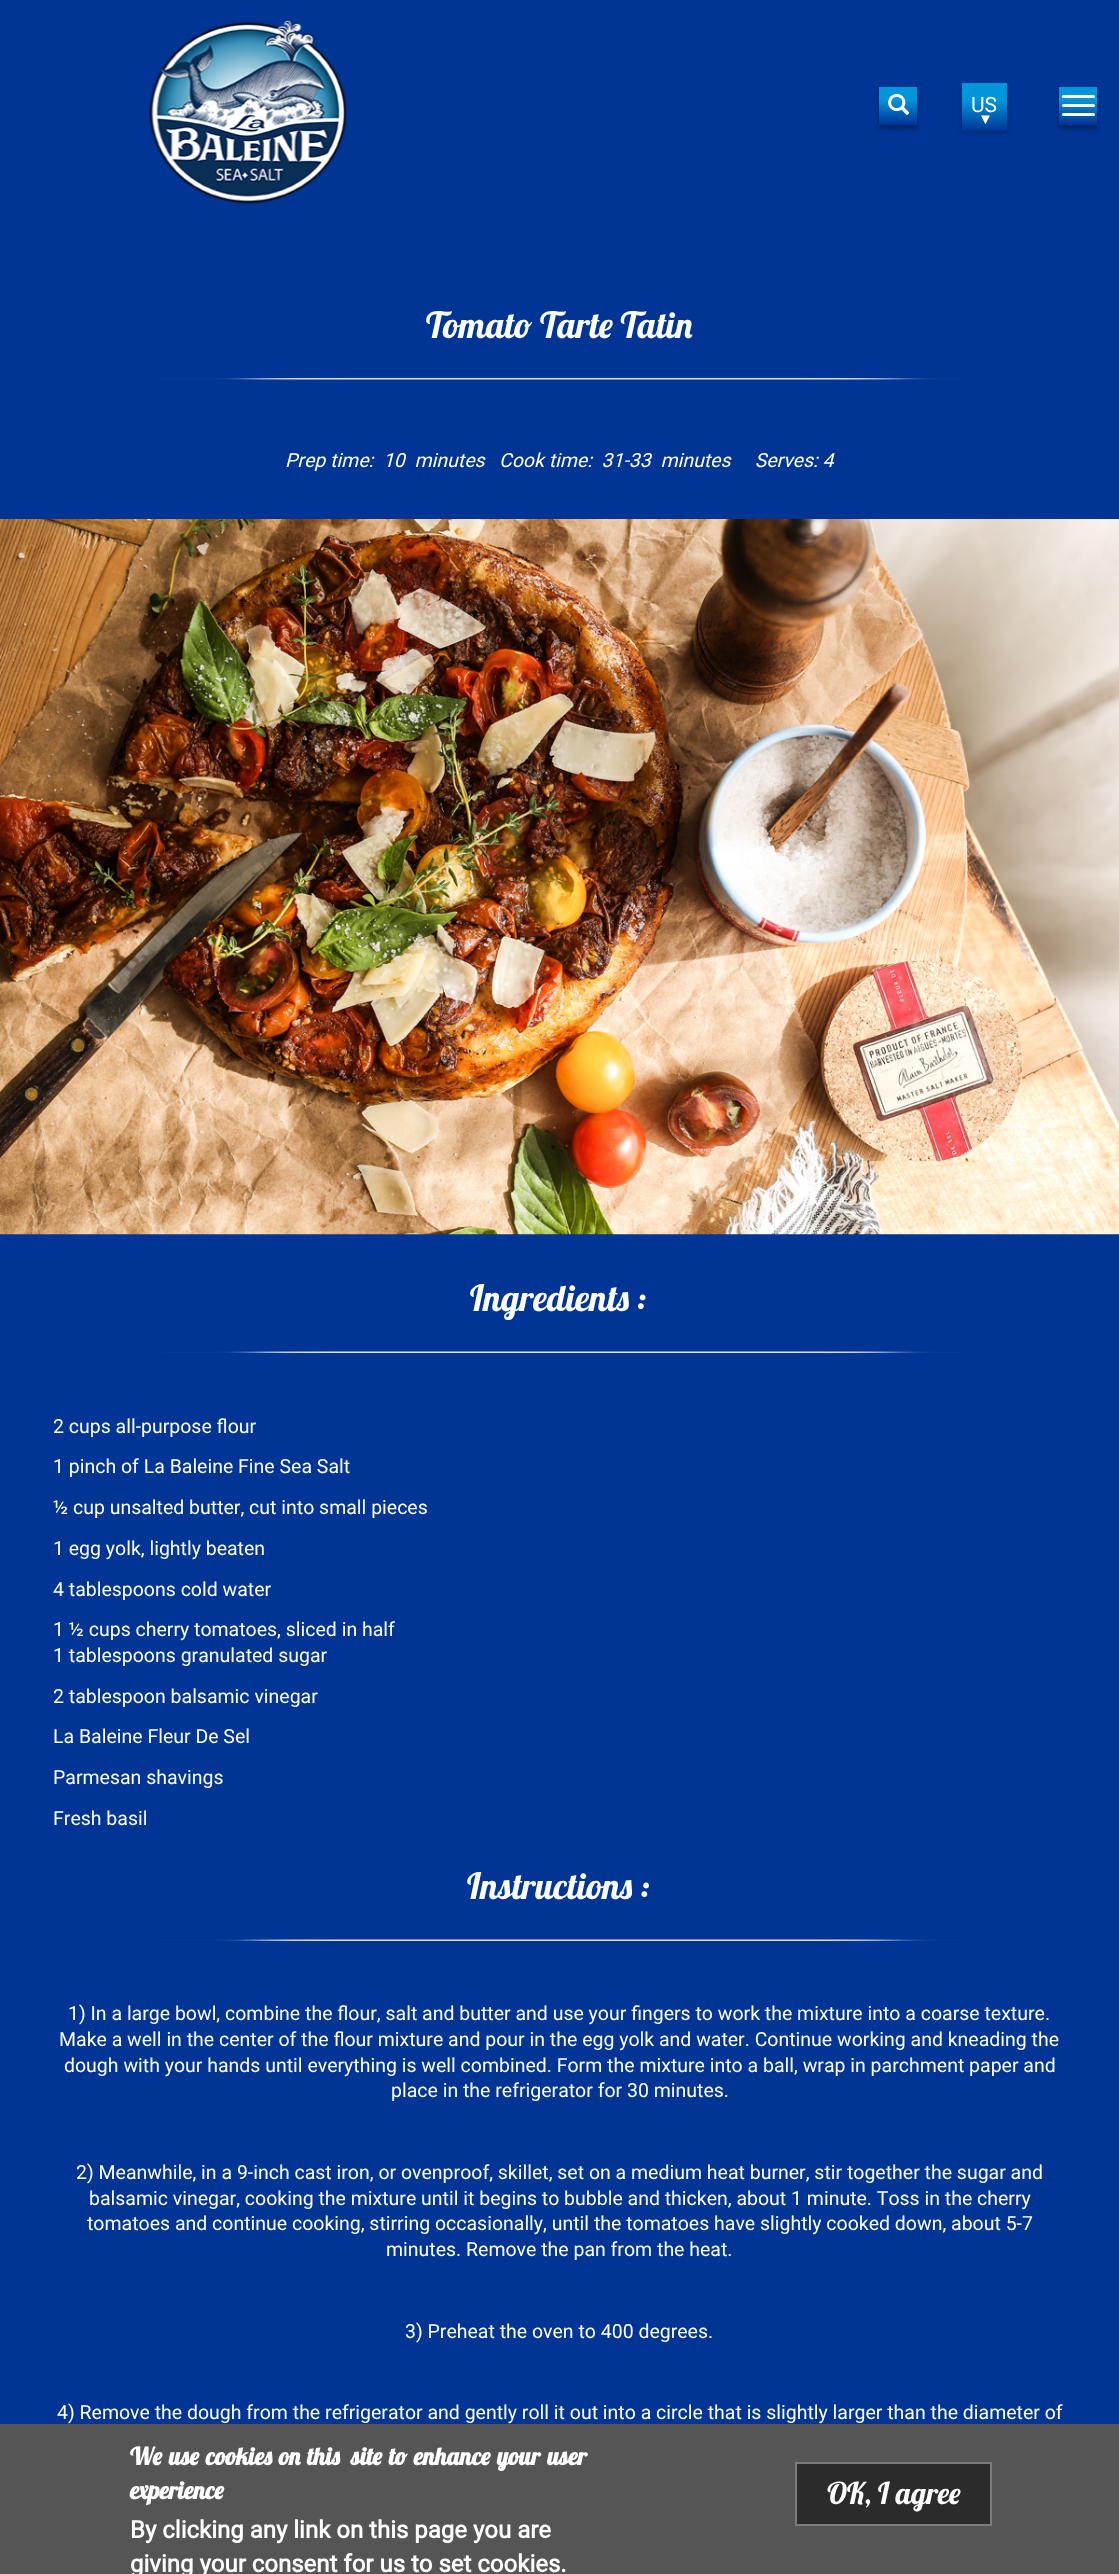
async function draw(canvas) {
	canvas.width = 1119;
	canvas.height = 2574;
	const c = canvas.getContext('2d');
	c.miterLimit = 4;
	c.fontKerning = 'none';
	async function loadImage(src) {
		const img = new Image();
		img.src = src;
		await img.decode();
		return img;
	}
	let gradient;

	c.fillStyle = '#003595';
	c.fillRect(0, 0, 1119, 2574);
	c.fillStyle = '#0000004d';
	c.filter = 'blur(2px)';
	c.beginPath();
	c.rect(879, 90, 38, 39);
	c.fill();
	c.filter = 'none';
	gradient = c.createLinearGradient(898, 86, 898, 124);
	gradient.addColorStop(0.35, '#0196dc');
	gradient.addColorStop(1, '#003595');
	c.fillStyle = gradient;
	c.fillRect(879, 87, 38, 38);
	c.drawImage(await loadImage('img1.png'), 888, 93, 22, 22);
	c.drawImage(await loadImage('img2.png'), 148, 20, 199, 184);
	c.fillStyle = '#0000004d';
	c.filter = 'blur(2px)';
	c.beginPath();
	c.rect(962, 87, 45, 45);
	c.fill();
	c.filter = 'none';
	gradient = c.createLinearGradient(984, 83, 984, 131);
	gradient.addColorStop(0.35, '#0196dc');
	gradient.addColorStop(1, '#003595');
	c.fillStyle = gradient;
	c.fillRect(962, 83, 45, 48);
	c.font = '21px Roboto';
	c.fillStyle = '#fff';
	c.fillText('US', 971, 112);
	c.font = '15px Liberation Serif';
	c.fillText('▼', 978, 124);
	c.fillStyle = '#0000004d';
	c.filter = 'blur(2px)';
	c.beginPath();
	c.rect(1059, 90, 38, 39);
	c.fill();
	c.filter = 'none';
	gradient = c.createLinearGradient(1078, 86, 1078, 124);
	gradient.addColorStop(0.35, '#0196dc');
	gradient.addColorStop(1, '#003595');
	c.fillStyle = gradient;
	c.fillRect(1059, 87, 38, 38);
	c.fillStyle = '#fff';
	c.beginPath();
	c.roundRect(1062, 95, 33, 3, 1.5);
	c.fill();
	c.beginPath();
	c.roundRect(1062, 104, 33, 3, 1.5);
	c.fill();
	c.beginPath();
	c.roundRect(1062, 113, 33, 3, 1.5);
	c.fill();
	c.drawImage(await loadImage('img3.png'), 157, 378, 807, 2);
	c.font = '36px Lobster';
	c.fillText('Tomato Tarte Tatin', 426, 338);
	c.font = 'italic 19.5px Roboto';
	c.fillText('Prep time:  10  minutes   Cook time:  31-33  minutes     Serves: 4', 285, 467);
	c.drawImage(await loadImage('img4.png'), 0, 519, 1119, 716);
	c.drawImage(await loadImage('img5.png'), 161, 1351, 799, 2);
	c.font = '36px Lobster';
	c.fillText('Ingredients :', 470, 1311);
	c.font = '19.5px Roboto';
	for (const [text, x, y] of [
		['2 cups all-purpose flour', 53, 1433],
		['1 pinch of La Baleine Fine Sea Salt', 53, 1473],
		['½ cup unsalted butter, cut into small pieces', 53, 1514],
		['1 egg yolk, lightly beaten', 53, 1555],
		['4 tablespoons cold water', 53, 1596],
		['1 ½ cups cherry tomatoes, sliced in half', 53, 1636],
		['1 tablespoons granulated sugar', 53, 1662],
		['2 tablespoon balsamic vinegar', 53, 1703],
		['La Baleine Fleur De Sel', 53, 1743],
		['Parmesan shavings', 53, 1784],
		['Fresh basil', 53, 1825],
	]) {
		c.fillText(text, x, y);
	}
	c.drawImage(await loadImage('img5.png'), 161, 1939, 799, 2);
	c.font = '36px Lobster';
	c.fillText('Instructions :', 467, 1899);
	c.font = '19.5px Roboto';
	for (const [text, x, y] of [
		['1) In a large bowl, combine the flour, salt and butter and use your fingers to work the mixture into a coarse texture.', 68, 2020],
		['Make a well in the center of the flour mixture and pour in the egg yolk and water. Continue working and kneading the', 59, 2046],
		['dough with your hands until everything is well combined. Form the mixture into a ball, wrap in parchment paper and', 64, 2072],
		['place in the refrigerator for 30 minutes.', 391, 2097],
		['2) Meanwhile, in a 9-inch cast iron, or ovenproof, skillet, set on a medium heat burner, stir together the sugar and', 76, 2179],
		['balsamic vinegar, cooking the mixture until it begins to bubble and thicken, about 1 minute. Toss in the cherry', 89, 2205],
		['tomatoes and continue cooking, stirring occasionally, until the tomatoes have slightly cooked down, about 5-7', 87, 2230],
		['minutes. Remove the pan from the heat.', 386, 2256],
		['3) Preheat the oven to 400 degrees.', 405, 2338],
		['4) Remove the dough from the refrigerator and gently roll it out into a circle that is slightly larger than the diameter of', 57, 2419],
	]) {
		c.fillText(text, x, y);
	}
	c.fillStyle = '#555';
	c.fillRect(0, 2424, 1119, 150);
	c.wordSpacing = '1.75px';
	c.font = 'bold 24px Lobster';
	c.fillStyle = '#fff';
	c.fillText('We use cookies on this', 130, 2465);
	c.fillText('site to enhance your user', 351, 2465);
	c.wordSpacing = '0px';
	c.fillText('experience', 130, 2499);
	c.font = 'bold 24px Roboto';
	c.fillText('By clicking any link on this page you are', 130, 2538);
	c.fillText('giving your consent for us to set cookies.', 130, 2572);
	c.fillStyle = '#2b2b2b';
	c.beginPath();
	c.rect(796, 2463, 195, 62);
	c.fill();
	c.strokeStyle = '#7c7c7c';
	c.lineWidth = 2;
	c.stroke();
	c.font = '30px Lobster';
	c.fillStyle = '#fff';
	c.fillText('OK, I agree', 827, 2504);
}

draw(document.querySelector('canvas'));
